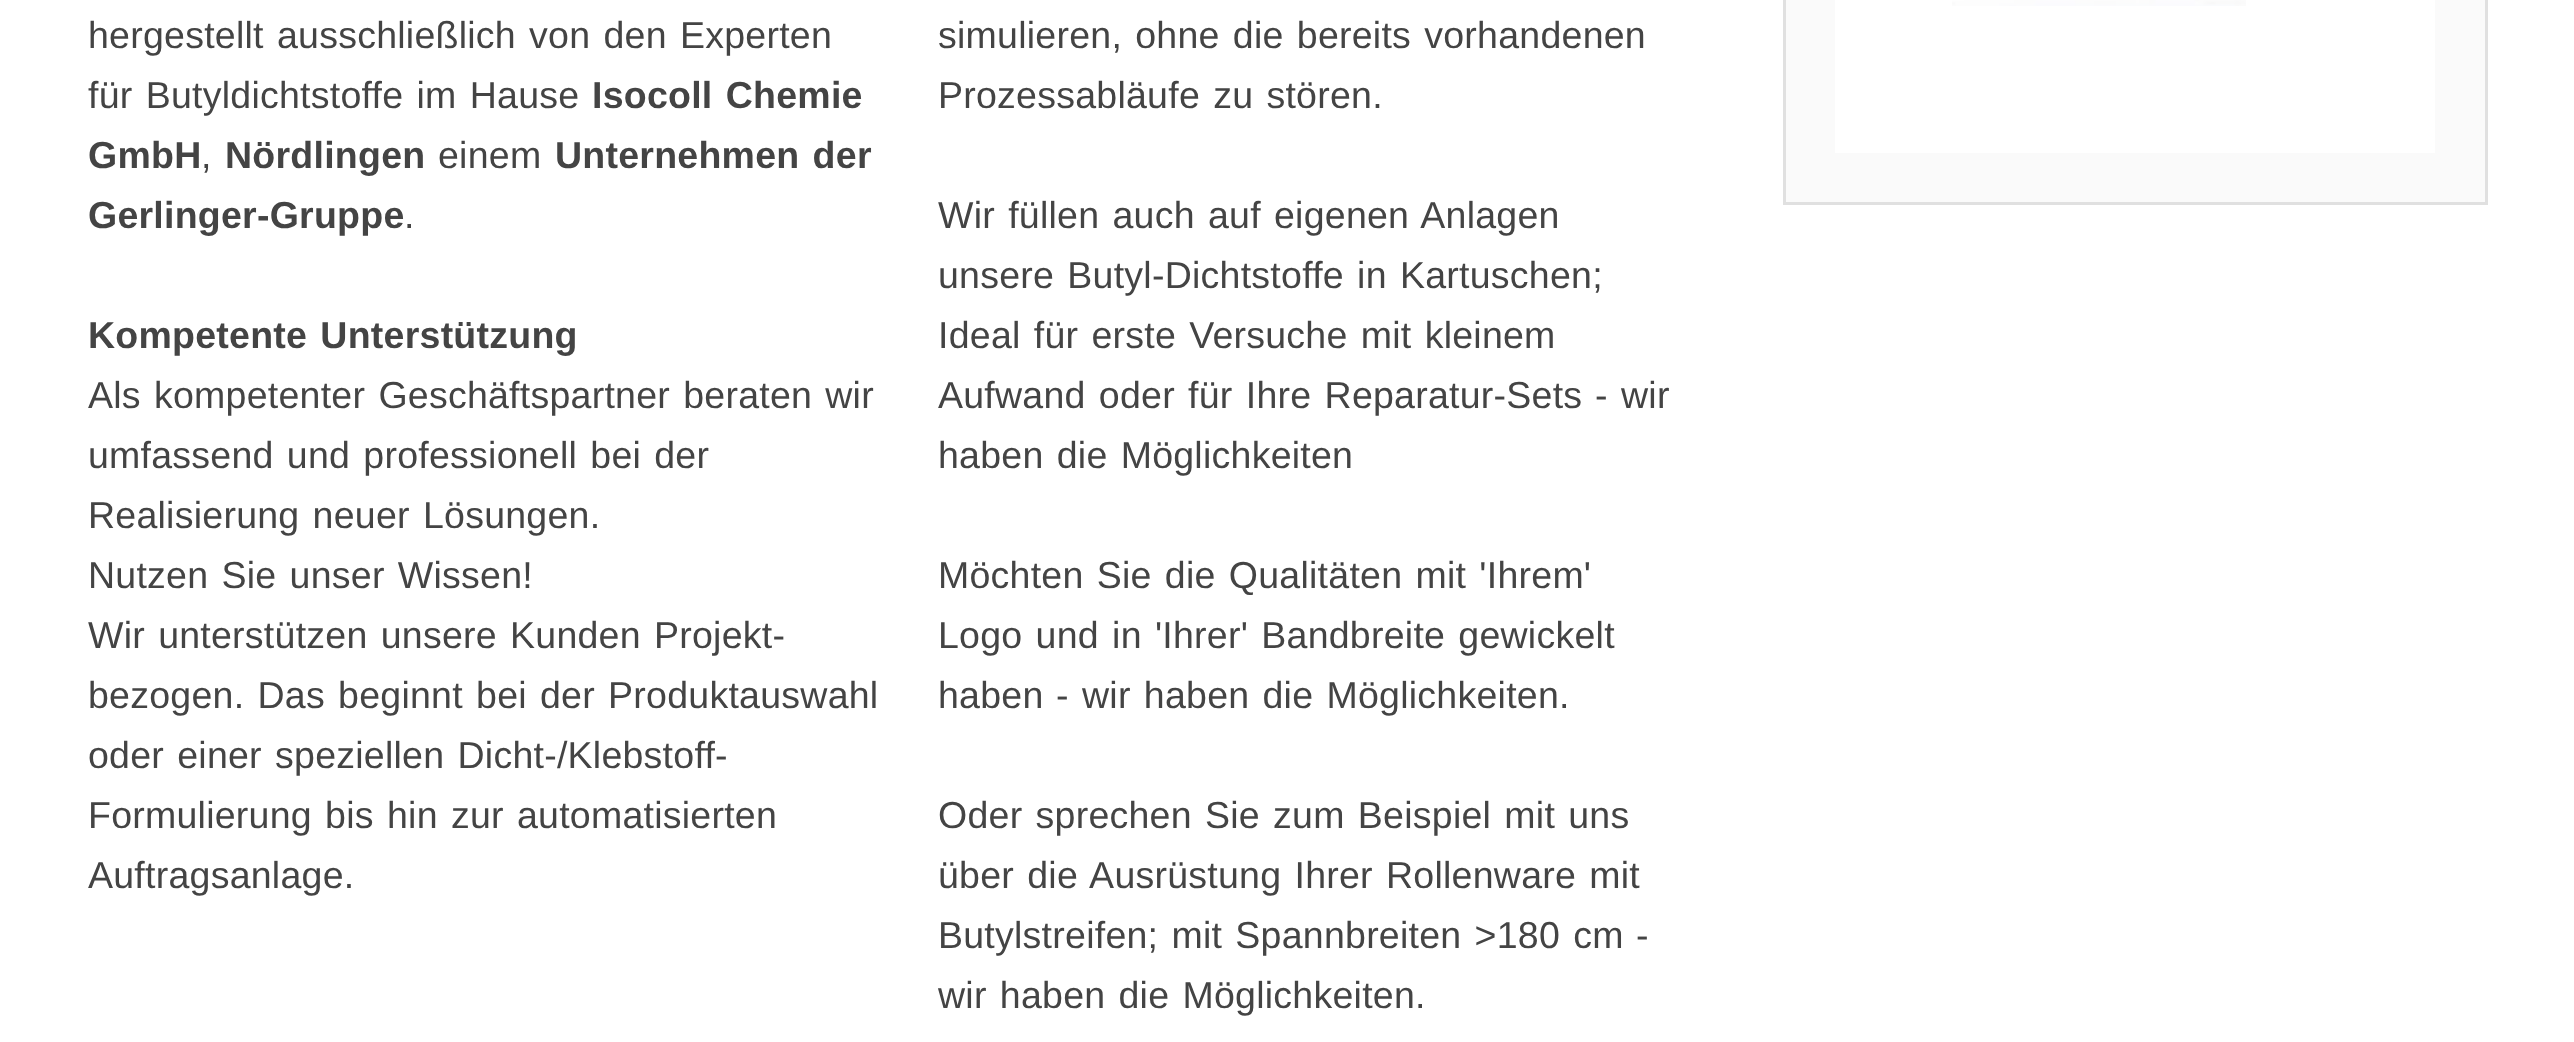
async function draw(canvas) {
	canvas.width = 2574;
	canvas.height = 1042;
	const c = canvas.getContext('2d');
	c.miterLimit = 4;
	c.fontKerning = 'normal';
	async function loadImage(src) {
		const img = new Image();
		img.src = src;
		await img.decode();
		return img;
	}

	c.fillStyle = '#fff';
	c.fillRect(0, 0, 2574, 1042);
	c.letterSpacing = '0.25px';
	c.wordSpacing = '2.5px';
	c.font = '37.5px Liberation Sans';
	c.fillStyle = '#444';
	c.fillText('hergestellt ausschließlich von den Experten', 88, 48);
	c.fillText('für Butyldichtstoffe im Hause', 88, 108);
	c.font = 'bold 37.5px Liberation Sans';
	c.fillText('Isocoll Chemie', 592, 108);
	c.wordSpacing = '0px';
	c.fillText('GmbH', 88, 168);
	c.font = '37.5px Liberation Sans';
	c.fillText(',', 201, 168);
	c.font = 'bold 37.5px Liberation Sans';
	c.fillText('Nördlingen', 225, 168);
	c.font = '37.5px Liberation Sans';
	c.fillText('einem', 438, 168);
	c.wordSpacing = '2.5px';
	c.font = 'bold 37.5px Liberation Sans';
	c.fillText('Unternehmen der', 555, 168);
	c.wordSpacing = '0px';
	c.fillText('Gerlinger-Gruppe', 88, 228);
	c.font = '37.5px Liberation Sans';
	c.fillText('.', 404, 228);
	c.wordSpacing = '2.5px';
	c.font = 'bold 37.5px Liberation Sans';
	c.fillText('Kompetente Unterstützung', 88, 348);
	c.font = '37.5px Liberation Sans';
	for (const [text, x, y] of [
		['Als kompetenter Geschäftspartner beraten wir', 88, 408],
		['umfassend und professionell bei der', 88, 468],
		['Realisierung neuer Lösungen.', 88, 528],
		['Nutzen Sie unser Wissen!', 88, 588],
		['Wir unterstützen unsere Kunden Projekt-', 88, 648],
		['bezogen. Das beginnt bei der Produktauswahl', 88, 708],
		['oder einer speziellen Dicht-/Klebstoff-', 88, 768],
		['Formulierung bis hin zur automatisierten', 88, 828],
	]) {
		c.fillText(text, x, y);
	}
	c.wordSpacing = '0px';
	c.fillText('Auftragsanlage.', 88, 888);
	c.wordSpacing = '2.5px';
	for (const [text, x, y] of [
		['simulieren, ohne die bereits vorhandenen', 938, 48],
		['Prozessabläufe zu stören.', 938, 108],
		['Wir füllen auch auf eigenen Anlagen', 938, 228],
		['unsere Butyl-Dichtstoffe in Kartuschen;', 938, 288],
		['Ideal für erste Versuche mit kleinem', 938, 348],
		['Aufwand oder für Ihre Reparatur-Sets', 938, 408],
	]) {
		c.fillText(text, x, y);
	}
	c.wordSpacing = '0px';
	c.fillText('-', 1595, 408);
	c.fillText('wir', 1621, 408);
	c.wordSpacing = '2.5px';
	for (const [text, x, y] of [
		['haben die Möglichkeiten', 938, 468],
		['Möchten Sie die Qualitäten mit \'Ihrem\'', 938, 588],
		['Logo und in \'Ihrer\' Bandbreite gewickelt', 938, 648],
	]) {
		c.fillText(text, x, y);
	}
	c.wordSpacing = '0px';
	c.fillText('haben', 938, 708);
	c.fillText('-', 1056, 708);
	c.wordSpacing = '2.5px';
	for (const [text, x, y] of [
		['wir haben die Möglichkeiten.', 1082, 708],
		['Oder sprechen Sie zum Beispiel mit uns', 938, 828],
		['über die Ausrüstung Ihrer Rollenware mit', 938, 888],
		['Butylstreifen; mit Spannbreiten >180 cm', 938, 948],
	]) {
		c.fillText(text, x, y);
	}
	c.wordSpacing = '0px';
	c.fillText('-', 1636, 948);
	c.wordSpacing = '2.5px';
	c.fillText('wir haben die Möglichkeiten.', 938, 1008);
	c.fillStyle = '#fafafa';
	c.beginPath();
	c.rect(1784.5, -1.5, 702, 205);
	c.fill();
	c.strokeStyle = '#e0e0e0';
	c.lineWidth = 3;
	c.stroke();
	c.fillStyle = '#fff';
	c.fillRect(1835, 0, 600, 153);
	c.drawImage(await loadImage('img1.png'), 1952, 0, 294, 6);
}

draw(document.querySelector('canvas'));
